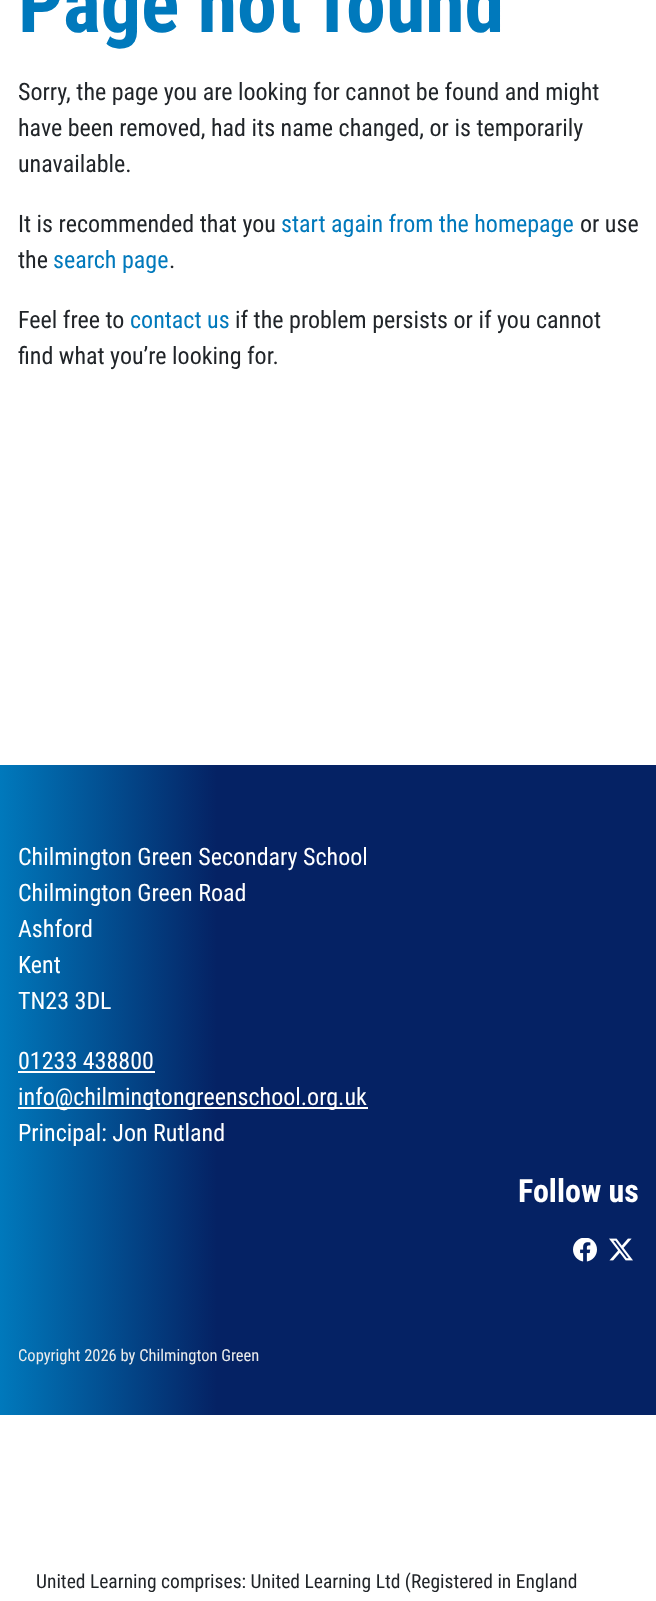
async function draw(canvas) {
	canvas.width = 656;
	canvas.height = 1601;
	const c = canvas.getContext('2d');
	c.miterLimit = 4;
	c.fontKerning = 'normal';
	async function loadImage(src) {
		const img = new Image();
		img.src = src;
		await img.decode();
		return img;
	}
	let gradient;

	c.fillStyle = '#fff';
	c.fillRect(0, 0, 656, 1601);
	c.font = 'bold 80px Roboto Condensed';
	c.fillStyle = '#0079bc';
	c.fillText('Page not found', 18, 32);
	c.font = '24px Roboto Condensed';
	c.fillStyle = '#212529';
	for (const [text, x, y] of [
		['Sorry, the page you are looking for cannot be found and might', 18, 100],
		['have been removed, had its name changed, or is temporarily', 18, 136],
		['unavailable.', 18, 172],
		['It is recommended that you', 18, 232],
	]) {
		c.fillText(text, x, y);
	}
	c.fillStyle = '#0079bc';
	c.fillText('start again from the homepage', 281, 232);
	c.fillStyle = '#212529';
	c.fillText('or use', 580, 232);
	c.fillText('the', 18, 268);
	c.fillStyle = '#0079bc';
	c.fillText('search page', 53, 268);
	c.fillStyle = '#212529';
	c.fillText('.', 169, 268);
	c.fillText('Feel free to', 18, 328);
	c.fillStyle = '#0079bc';
	c.fillText('contact us', 130, 328);
	c.fillStyle = '#212529';
	c.fillText('if the problem persists or if you cannot', 235, 328);
	c.fillText('find what you’re looking for.', 18, 364);
	gradient = c.createLinearGradient(0, 1090, 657, 1090);
	gradient.addColorStop(0, '#0079bc');
	gradient.addColorStop(0.33, '#052264');
	gradient.addColorStop(1, '#052264');
	c.fillStyle = gradient;
	c.fillRect(0, 765, 656, 650);
	c.fillStyle = '#fff';
	for (const [text, x, y] of [
		['Chilmington Green Secondary School', 18, 865],
		['Chilmington Green Road', 18, 901],
		['Ashford', 18, 937],
		['Kent', 18, 973],
		['TN23 3DL', 18, 1009],
		['01233 438800', 18, 1069],
	]) {
		c.fillText(text, x, y);
	}
	c.fillRect(18, 1071, 137, 2);
	c.fillRect(18, 1107, 350, 2);
	c.fillText('info@chilmingtongreenschool.org.uk', 18, 1105);
	c.fillText('Principal: Jon Rutland', 18, 1141);
	c.font = 'bold 32px Roboto Condensed';
	c.fillText('Follow us', 518, 1202);
	c.drawImage(await loadImage('img1.png'), 573, 1238, 24, 24);
	c.drawImage(await loadImage('img2.png'), 609, 1238, 24, 23);
	c.font = '16.5px Roboto Condensed';
	c.fillStyle = '#ececec';
	c.fillText('Copyright 2026 by Chilmington Green', 18, 1361);
	c.font = '19.5px Roboto Condensed';
	c.fillStyle = '#212529';
	c.fillText('United Learning comprises: United Learning Ltd (Registered in England', 36, 1588);
}

draw(document.querySelector('canvas'));
